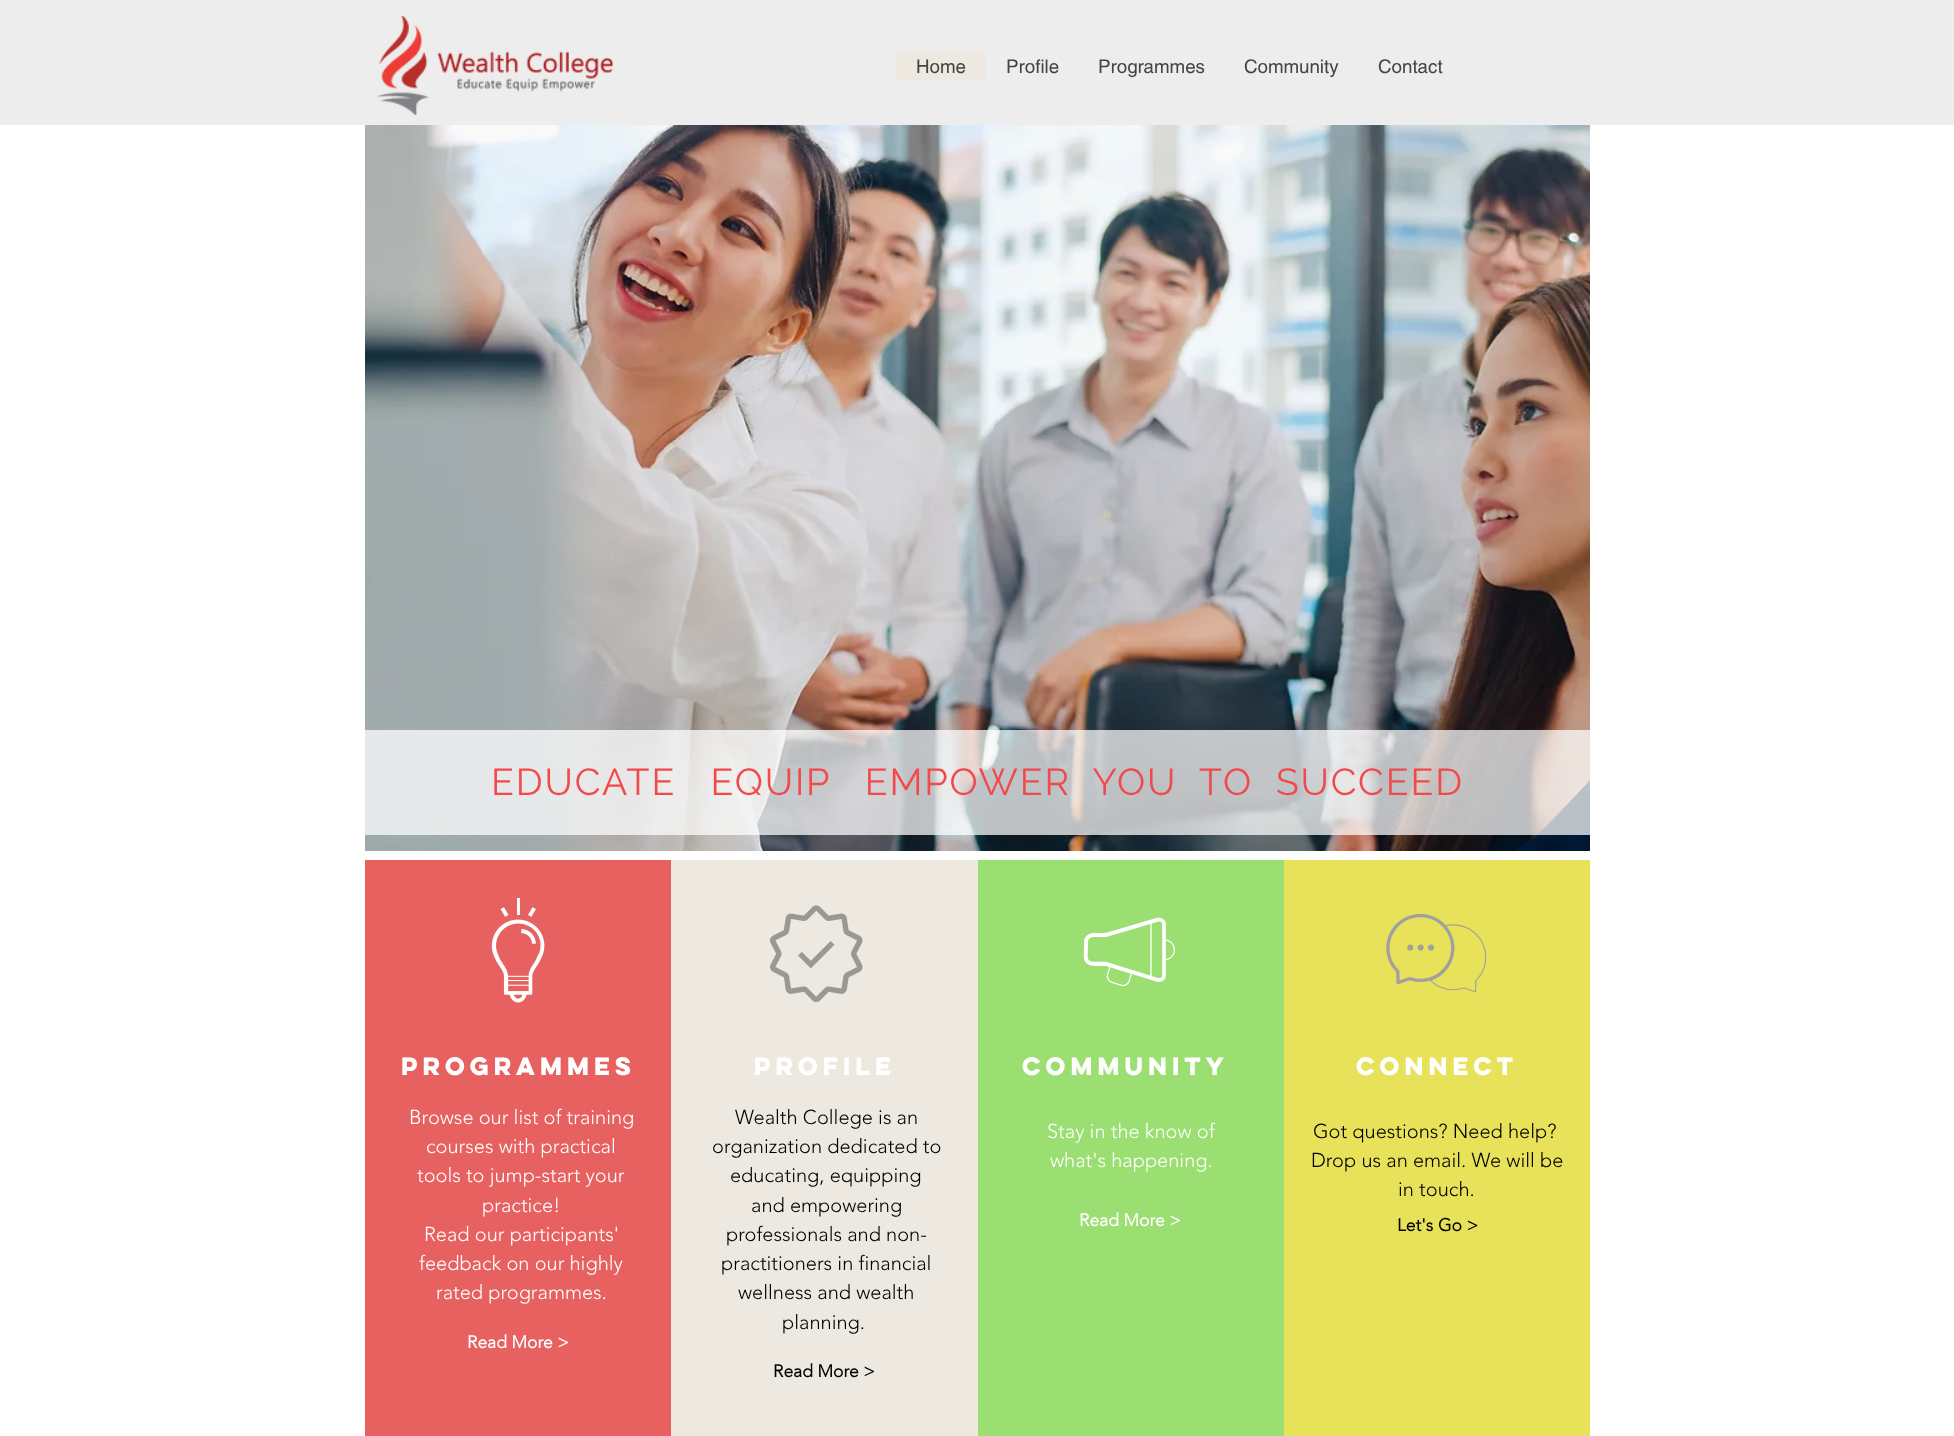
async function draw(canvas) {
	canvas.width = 1954;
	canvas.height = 1436;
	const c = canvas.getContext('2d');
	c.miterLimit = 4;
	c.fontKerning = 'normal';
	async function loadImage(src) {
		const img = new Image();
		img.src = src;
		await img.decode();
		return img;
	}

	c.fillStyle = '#fff';
	c.fillRect(0, 0, 1954, 1436);
	c.fillStyle = '#ededed';
	c.fillRect(0, 0, 1954, 125);
	c.drawImage(await loadImage('img1.png'), 377, 16, 236, 99);
	c.fillStyle = '#ede9e1';
	c.fillRect(896, 51, 89, 29);
	c.font = '18.75px helvetica';
	c.fillStyle = '#444';
	for (const [text, x, y] of [
		['Home', 916, 73],
		['Profile', 1006, 73],
		['Programmes', 1098, 73],
		['Community', 1244, 73],
		['Contact', 1378, 73],
	]) {
		c.fillText(text, x, y);
	}
	c.drawImage(await loadImage('img2.png'), 365, 125, 1225, 726);
	c.fillStyle = '#ffffffba';
	c.fillRect(365, 730, 1225, 105);
	c.letterSpacing = '1.9px';
	c.font = '37.5px Raleway';
	c.fillStyle = '#f2494d';
	c.fillText('EDUCATE   EQUIP   EMPOWER  YOU  TO  SUCCEED', 491, 795);
	c.fillStyle = '#e86161';
	c.fillRect(365, 860, 306, 576);
	c.letterSpacing = '0px';
	c.font = 'bold 22.5px "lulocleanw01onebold"';
	c.fillStyle = '#fff';
	c.fillText('programmes', 401, 1075);
	c.drawImage(await loadImage('img3.png'), 491, 898, 54, 105);
	c.font = '300 20px "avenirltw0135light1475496"';
	for (const [text, x, y] of [
		['Browse our list of training', 409, 1124],
		['courses with practical', 426, 1153],
		['tools to jump-start your', 417, 1182],
		['practice!', 482, 1212],
		['Read our participants\'', 424, 1241],
		['feedback on our highly', 419, 1270],
		['rated programmes.', 436, 1299],
	]) {
		c.fillText(text, x, y);
	}
	c.font = 'bold 17.5px "avenirltw0135light1475496"';
	c.fillText('Read More >', 467, 1348);
	c.fillStyle = '#ede9e1';
	c.fillRect(671, 860, 307, 576);
	c.drawImage(await loadImage('img4.png'), 770, 905, 93, 97);
	c.font = 'bold 22.5px "lulocleanw01onebold"';
	c.fillStyle = '#fff';
	c.fillText('PROFILE', 754, 1075);
	c.font = '300 20px "avenirltw0135light1475496"';
	c.fillStyle = '#000';
	for (const [text, x, y] of [
		['Wealth College is an', 735, 1124],
		['organization dedicated to', 712, 1153],
		['educating, equipping', 730, 1182],
		['and empowering', 751, 1212],
		['professionals and non-', 726, 1241],
		['practitioners in financial', 721, 1270],
		['wellness and wealth', 738, 1299],
		['planning.', 782, 1329],
	]) {
		c.fillText(text, x, y);
	}
	c.font = 'bold 17.5px "avenirltw0135light1475496"';
	c.fillText('Read More >', 773, 1377);
	c.fillStyle = '#9bde71';
	c.fillRect(978, 860, 306, 576);
	c.drawImage(await loadImage('img5.png'), 1083, 917, 92, 70);
	c.font = '300 20px "avenirltw0135light1475496"';
	c.fillStyle = '#fff';
	c.fillText('Stay in the know of', 1047, 1138);
	c.fillText('what\'s happening.', 1050, 1167);
	c.font = 'bold 17.5px "avenirltw0135light1475496"';
	c.fillText('Read More >', 1079, 1226);
	c.fillStyle = '#e8e15a';
	c.fillRect(1284, 860, 306, 576);
	c.drawImage(await loadImage('img6.png'), 1386, 913, 101, 80);
	c.font = '300 20px "avenirltw0135light1475496"';
	c.fillStyle = '#000';
	for (const [text, x, y] of [
		['Got questions? Need help?', 1313, 1138],
		['Drop us an email. We will be', 1311, 1167],
		['in touch.', 1398, 1196],
	]) {
		c.fillText(text, x, y);
	}
	c.font = 'bold 17.5px "avenirltw0135light1475496"';
	c.fillText('Let\'s Go >', 1397, 1231);
	c.font = 'bold 22.5px "lulocleanw01onebold"';
	c.fillStyle = '#fff';
	c.fillText('COMMUNITY', 1022, 1075);
	c.fillText('CONNECT', 1356, 1075);
}

draw(document.querySelector('canvas'));
